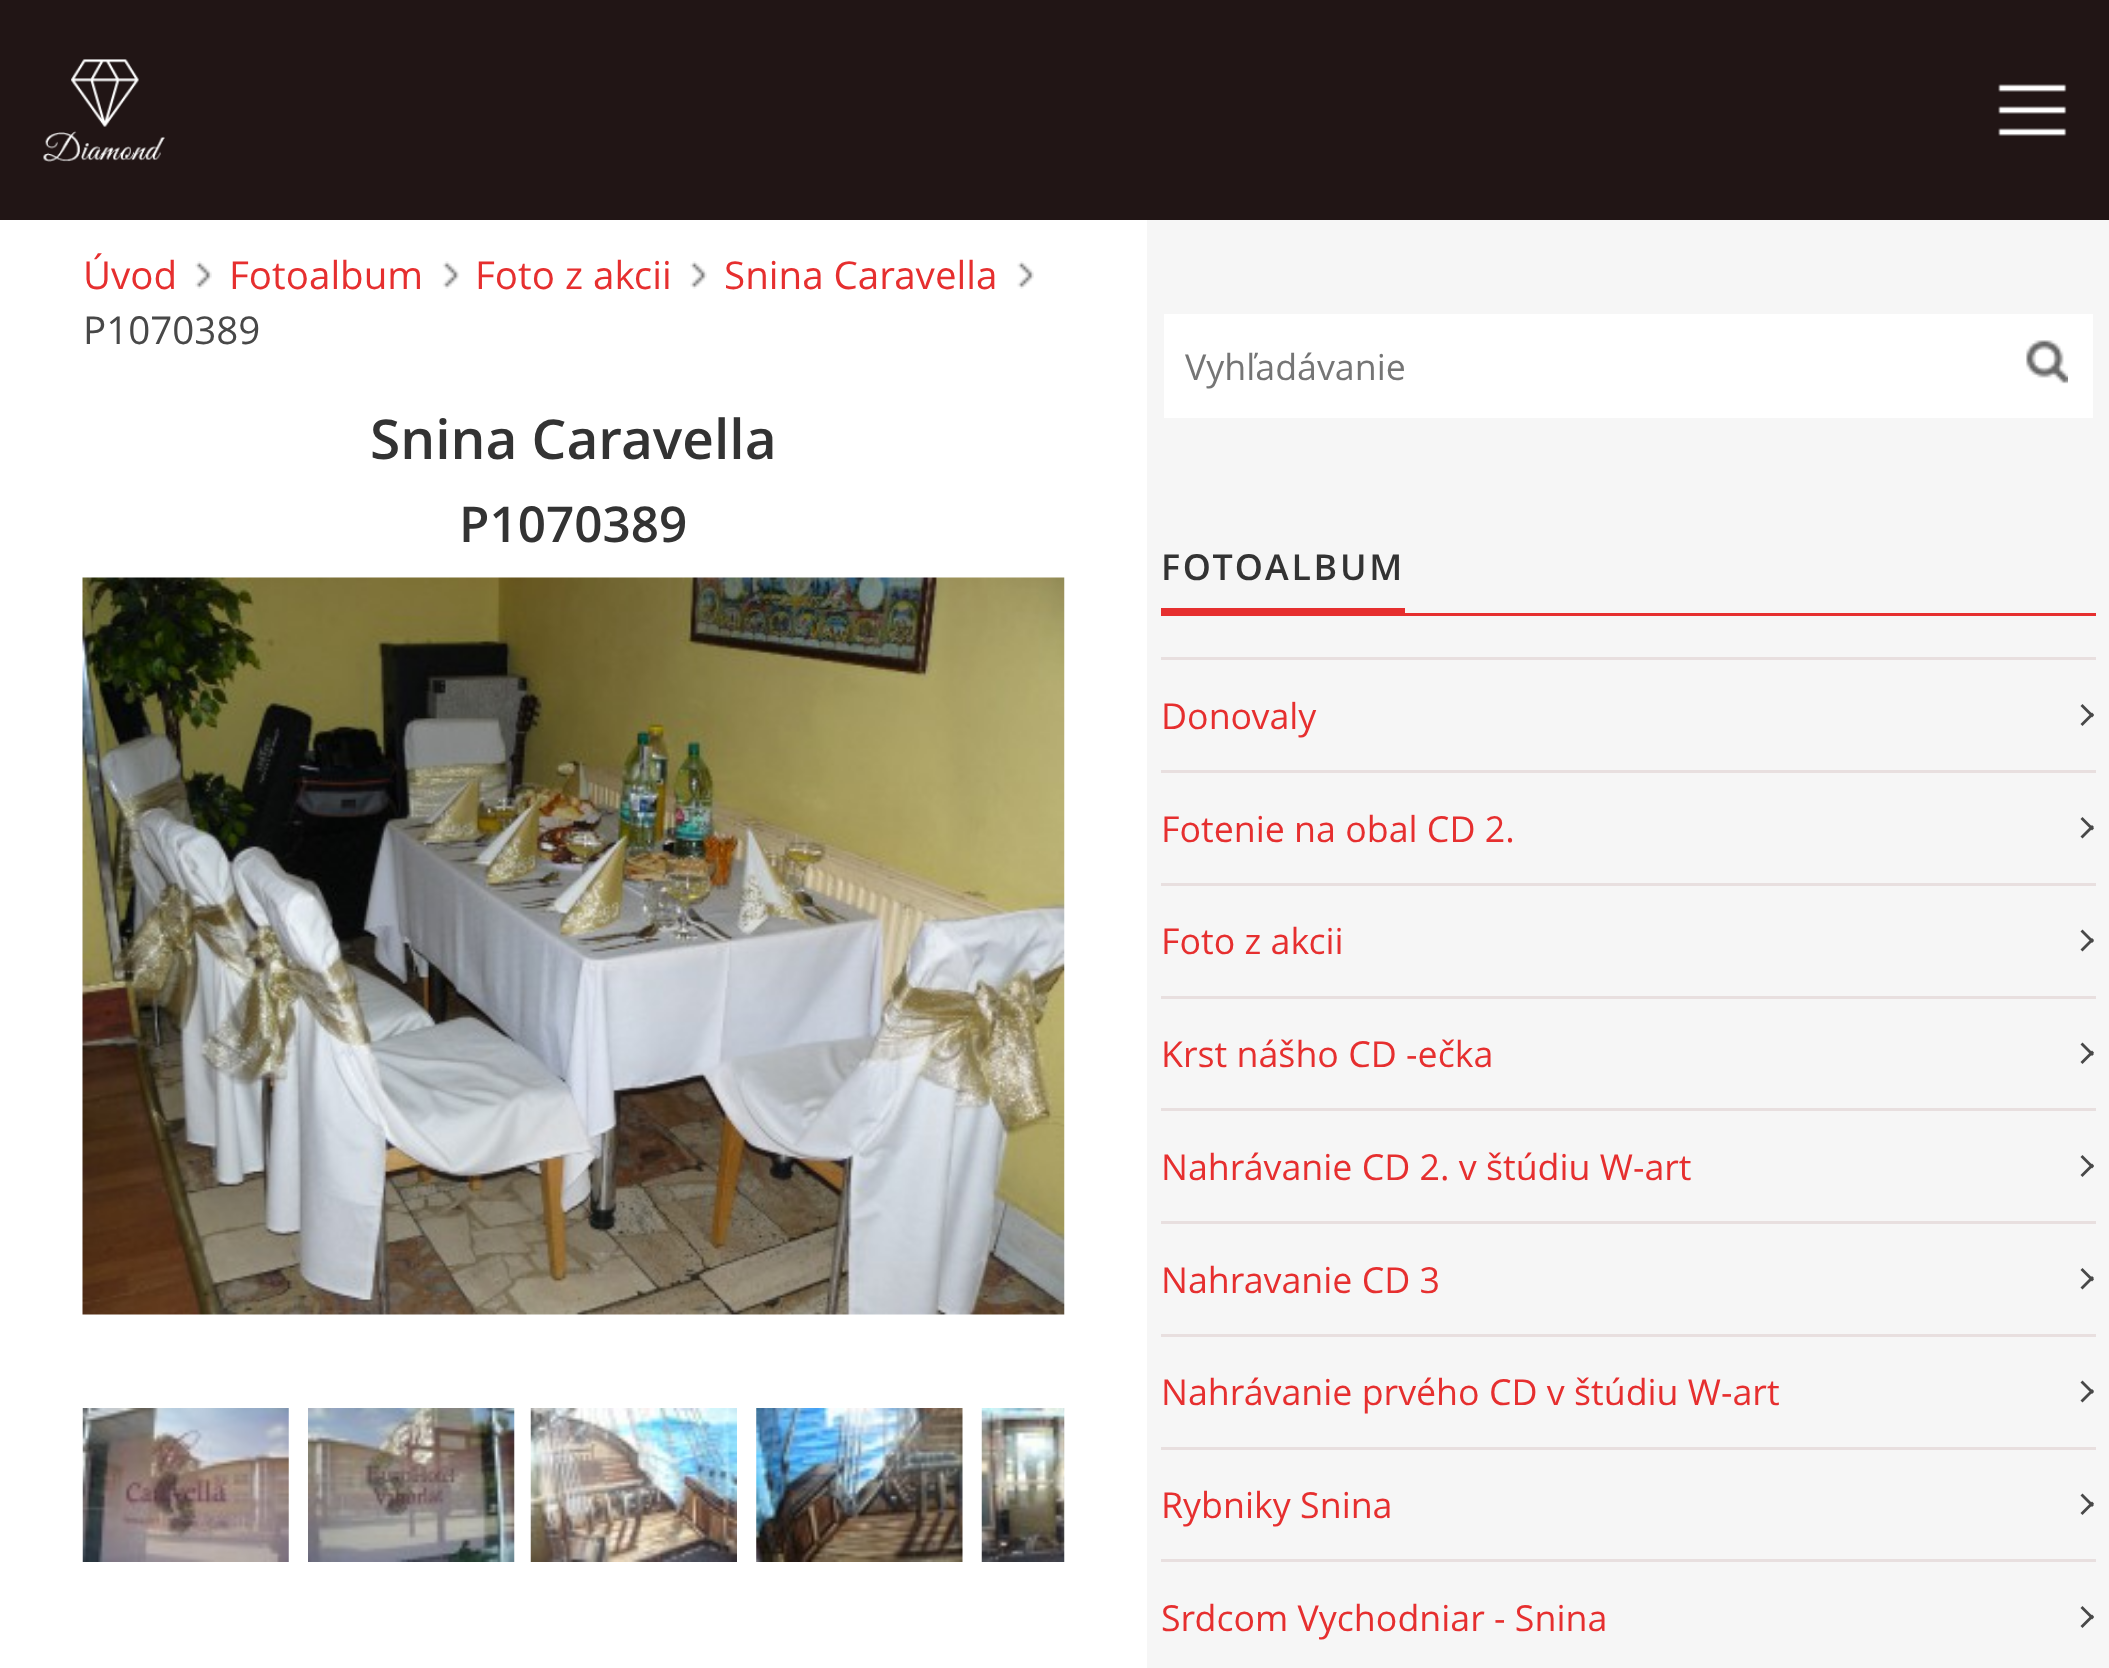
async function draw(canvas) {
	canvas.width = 2109;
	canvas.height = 1668;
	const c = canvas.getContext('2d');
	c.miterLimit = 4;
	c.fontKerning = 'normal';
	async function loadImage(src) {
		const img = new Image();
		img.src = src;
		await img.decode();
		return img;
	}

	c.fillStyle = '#fff';
	c.fillRect(0, 0, 2109, 1668);
	c.fillStyle = '#211515';
	c.fillRect(0, 0, 2109, 220);
	c.drawImage(await loadImage('img1.png'), 43, 59, 122, 103);
	c.drawImage(await loadImage('img2.png'), 1998, 84, 69, 52);
	c.drawImage(await loadImage('img3.png'), 195, 261, 17, 28);
	c.font = '38.5px Open Sans';
	c.fillStyle = '#e62f2f';
	c.fillText('Úvod', 83, 289);
	c.drawImage(await loadImage('img4.png'), 442, 261, 18, 28);
	c.fillText('Fotoalbum', 229, 289);
	c.drawImage(await loadImage('img3.png'), 690, 261, 17, 28);
	c.fillText('Foto z akcii', 475, 289);
	c.drawImage(await loadImage('img5.png'), 1017, 261, 17, 28);
	c.fillText('Snina Caravella', 724, 289);
	c.fillStyle = '#484848';
	c.fillText('P1070389', 83, 344);
	c.font = '600 55px Open Sans';
	c.fillStyle = '#333';
	c.fillText('Snina Caravella', 370, 459);
	c.font = '600 49.5px Open Sans';
	c.fillText('P1070389', 459, 542);
	c.drawImage(await loadImage('img6.png'), 82, 577, 983, 738);
	c.drawImage(await loadImage('img7.png'), 82, 1408, 207, 154);
	c.drawImage(await loadImage('img8.png'), 308, 1408, 207, 154);
	c.drawImage(await loadImage('img9.png'), 530, 1408, 207, 154);
	c.drawImage(await loadImage('img10.png'), 756, 1408, 207, 154);
	c.drawImage(await loadImage('img11.png'), 981, 1408, 84, 154);
	c.fillStyle = '#f6f6f6';
	c.fillRect(1147, 220, 962, 1448);
	c.fillStyle = '#fff';
	c.fillRect(1164, 314, 929, 104);
	c.font = '35.75px Open Sans';
	c.fillStyle = '#757575';
	c.fillText('Vyhľadávanie', 1185, 380);
	c.drawImage(await loadImage('img12.png'), 2026, 340, 42, 44);
	c.letterSpacing = '2.75px';
	c.font = '600 35.75px Open Sans';
	c.fillStyle = '#333';
	c.fillText('FOTOALBUM', 1161, 580);
	for (const [x, y, w, h, color] of [
		[1161, 608, 244, 5, '#e62f2f'],
		[1161, 613, 935, 3, '#e62f2f'],
		[1161, 657, 935, 3, '#e8dfdf'],
		[1161, 770, 935, 3, '#e8dfdf'],
	]) {
		c.fillStyle = color;
		c.fillRect(x, y, w, h);
	}
	c.letterSpacing = '0px';
	c.font = '35.75px Open Sans';
	c.fillStyle = '#e62f2f';
	c.fillText('Donovaly', 1161, 729);
	c.fillStyle = '#484848';
	c.beginPath();
	c.moveTo(2082.5, 704);
	c.lineTo(2094, 715.5);
	c.lineTo(2092, 717.5);
	c.lineTo(2080.5, 706);
	c.closePath();
	c.fill();
	c.beginPath();
	c.moveTo(2080.5, 724);
	c.lineTo(2092, 712.5);
	c.lineTo(2094, 714.5);
	c.lineTo(2082.5, 726);
	c.closePath();
	c.fill();
	c.fillStyle = '#e8dfdf';
	c.fillRect(1161, 883, 935, 3);
	c.fillStyle = '#e62f2f';
	c.fillText('Fotenie na obal CD 2.', 1161, 842);
	c.fillStyle = '#484848';
	c.beginPath();
	c.moveTo(2082.5, 817);
	c.lineTo(2094, 828.5);
	c.lineTo(2092, 830.5);
	c.lineTo(2080.5, 819);
	c.closePath();
	c.fill();
	c.beginPath();
	c.moveTo(2080.5, 836.5);
	c.lineTo(2092, 825);
	c.lineTo(2094, 827);
	c.lineTo(2082.5, 838.5);
	c.closePath();
	c.fill();
	c.fillStyle = '#e8dfdf';
	c.fillRect(1161, 996, 935, 3);
	c.fillStyle = '#e62f2f';
	c.fillText('Foto z akcii', 1161, 954);
	c.fillStyle = '#484848';
	c.beginPath();
	c.moveTo(2082.5, 929.5);
	c.lineTo(2094, 941);
	c.lineTo(2092, 943);
	c.lineTo(2080.5, 931.5);
	c.closePath();
	c.fill();
	c.beginPath();
	c.moveTo(2080.5, 949.5);
	c.lineTo(2092, 938);
	c.lineTo(2094, 940);
	c.lineTo(2082.5, 951.5);
	c.closePath();
	c.fill();
	c.fillStyle = '#e8dfdf';
	c.fillRect(1161, 1108, 935, 3);
	c.fillStyle = '#e62f2f';
	c.fillText('Krst nášho CD -ečka', 1161, 1067);
	c.fillStyle = '#484848';
	c.beginPath();
	c.moveTo(2082.5, 1042.5);
	c.lineTo(2094, 1054);
	c.lineTo(2092, 1056);
	c.lineTo(2080.5, 1044.5);
	c.closePath();
	c.fill();
	c.beginPath();
	c.moveTo(2080.5, 1062);
	c.lineTo(2092, 1050.5);
	c.lineTo(2094, 1052.5);
	c.lineTo(2082.5, 1064);
	c.closePath();
	c.fill();
	c.fillStyle = '#e8dfdf';
	c.fillRect(1161, 1221, 935, 3);
	c.fillStyle = '#e62f2f';
	c.fillText('Nahrávanie CD 2. v štúdiu W-art', 1161, 1180);
	c.fillStyle = '#484848';
	c.beginPath();
	c.moveTo(2082.5, 1155);
	c.lineTo(2094, 1166.5);
	c.lineTo(2092, 1168.5);
	c.lineTo(2080.5, 1157);
	c.closePath();
	c.fill();
	c.beginPath();
	c.moveTo(2080.5, 1175);
	c.lineTo(2092, 1163.5);
	c.lineTo(2094, 1165.5);
	c.lineTo(2082.5, 1177);
	c.closePath();
	c.fill();
	c.fillStyle = '#e8dfdf';
	c.fillRect(1161, 1334, 935, 3);
	c.fillStyle = '#e62f2f';
	c.fillText('Nahravanie CD 3', 1161, 1293);
	c.fillStyle = '#484848';
	c.beginPath();
	c.moveTo(2082.5, 1268);
	c.lineTo(2094, 1279.5);
	c.lineTo(2092, 1281.5);
	c.lineTo(2080.5, 1270);
	c.closePath();
	c.fill();
	c.beginPath();
	c.moveTo(2080.5, 1287.5);
	c.lineTo(2092, 1276);
	c.lineTo(2094, 1278);
	c.lineTo(2082.5, 1289.5);
	c.closePath();
	c.fill();
	c.fillStyle = '#e8dfdf';
	c.fillRect(1161, 1447, 935, 3);
	c.fillStyle = '#e62f2f';
	c.fillText('Nahrávanie prvého CD v štúdiu W-art', 1161, 1405);
	c.fillStyle = '#484848';
	c.beginPath();
	c.moveTo(2082.5, 1380.5);
	c.lineTo(2094, 1392);
	c.lineTo(2092, 1394);
	c.lineTo(2080.5, 1382.5);
	c.closePath();
	c.fill();
	c.beginPath();
	c.moveTo(2080.5, 1400.5);
	c.lineTo(2092, 1389);
	c.lineTo(2094, 1391);
	c.lineTo(2082.5, 1402.5);
	c.closePath();
	c.fill();
	c.fillStyle = '#e8dfdf';
	c.fillRect(1161, 1559, 935, 3);
	c.fillStyle = '#e62f2f';
	c.fillText('Rybniky Snina', 1161, 1518);
	c.fillStyle = '#484848';
	c.beginPath();
	c.moveTo(2082.5, 1493.5);
	c.lineTo(2094, 1505);
	c.lineTo(2092, 1507);
	c.lineTo(2080.5, 1495.5);
	c.closePath();
	c.fill();
	c.beginPath();
	c.moveTo(2080.5, 1513);
	c.lineTo(2092, 1501.5);
	c.lineTo(2094, 1503.5);
	c.lineTo(2082.5, 1515);
	c.closePath();
	c.fill();
	c.fillStyle = '#e62f2f';
	c.fillText('Srdcom Vychodniar - Snina', 1161, 1631);
	c.fillStyle = '#484848';
	c.beginPath();
	c.moveTo(2082.5, 1606);
	c.lineTo(2094, 1617.5);
	c.lineTo(2092, 1619.5);
	c.lineTo(2080.5, 1608);
	c.closePath();
	c.fill();
	c.beginPath();
	c.moveTo(2080.5, 1626);
	c.lineTo(2092, 1614.5);
	c.lineTo(2094, 1616.5);
	c.lineTo(2082.5, 1628);
	c.closePath();
	c.fill();
}

draw(document.querySelector('canvas'));
